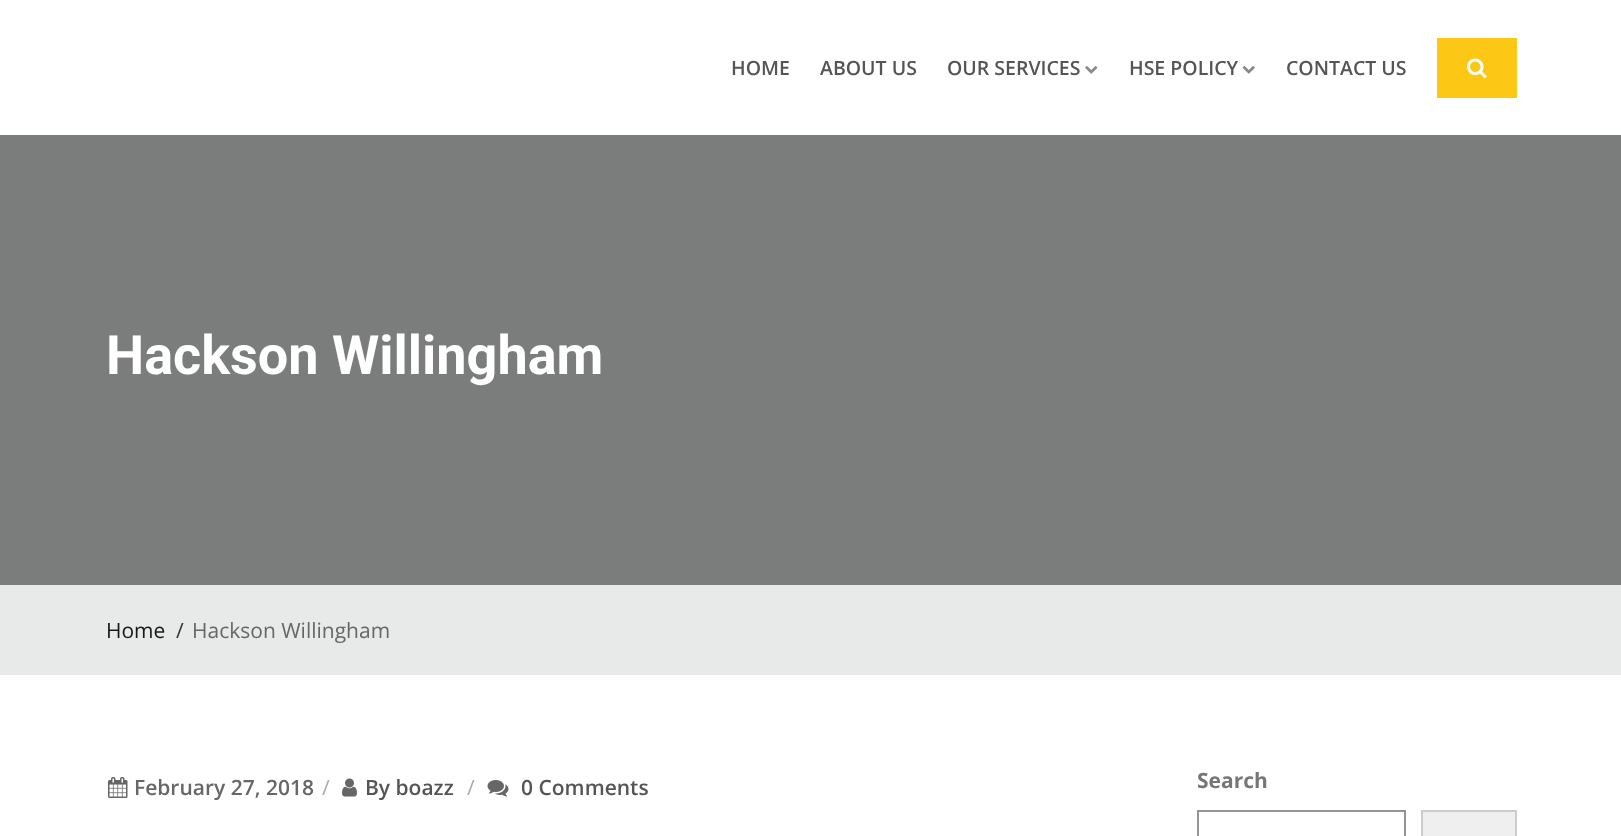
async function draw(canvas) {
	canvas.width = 1621;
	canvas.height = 836;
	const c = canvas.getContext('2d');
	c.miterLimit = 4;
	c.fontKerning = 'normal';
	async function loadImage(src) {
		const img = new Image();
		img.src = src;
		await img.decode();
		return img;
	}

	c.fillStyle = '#e8e9e9';
	c.fillRect(0, 0, 1621, 836);
	c.fillStyle = '#fff';
	c.fillRect(0, 0, 1621, 135);
	c.font = '600 19.5px Open Sans';
	c.fillStyle = '#555';
	for (const [text, x, y] of [
		['HOME', 731, 75],
		['ABOUT US', 820, 75],
		['OUR SERVICES', 947, 75],
	]) {
		c.fillText(text, x, y);
	}
	c.drawImage(await loadImage('img1.png'), 1085, 66, 13, 8);
	c.fillText('HSE POLICY', 1129, 75);
	c.drawImage(await loadImage('img2.png'), 1242, 66, 13, 8);
	c.fillText('CONTACT US', 1286, 75);
	c.fillStyle = '#fdc716';
	c.fillRect(1437, 38, 80, 60);
	c.drawImage(await loadImage('img3.png'), 1467, 58, 20, 20);
	c.fillStyle = '#7b7d7d';
	c.fillRect(0, 135, 1621, 450);
	c.font = 'bold 54px Roboto';
	c.fillStyle = '#fff';
	c.fillText('Hackson Willingham', 106, 374);
	c.font = '21px Open Sans';
	c.fillStyle = '#191919';
	c.fillText('Home', 106, 638);
	c.fillStyle = '#333';
	c.fillText('/', 176, 638);
	c.fillStyle = '#676767';
	c.fillText('Hackson Willingham', 192, 638);
	c.fillStyle = '#fff';
	c.fillRect(0, 675, 1621, 161);
	c.drawImage(await loadImage('img4.png'), 108, 777, 20, 21);
	c.font = '600 21px Open Sans';
	c.fillStyle = '#676767';
	c.fillText('February 27, 2018', 134, 795);
	c.font = '21px Open Sans';
	c.fillStyle = '#aaa';
	c.fillText('/', 322, 795);
	c.drawImage(await loadImage('img5.png'), 342, 778, 15, 19);
	c.font = '600 21px Open Sans';
	c.fillStyle = '#555';
	c.fillText('By boazz', 365, 795);
	c.font = '21px Open Sans';
	c.fillStyle = '#aaa';
	c.fillText('/', 467, 795);
	c.drawImage(await loadImage('img6.png'), 487, 780, 22, 17);
	c.font = '600 21px Open Sans';
	c.fillStyle = '#555';
	c.fillText('0 Comments', 521, 795);
	c.font = 'bold 21px Open Sans';
	c.fillStyle = '#767676';
	c.fillText('Search', 1197, 788);
	c.strokeStyle = '#949494';
	c.lineWidth = 2;
	c.strokeRect(1198, 811, 207, 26);
	c.fillStyle = '#efefef';
	c.beginPath();
	c.rect(1422, 811, 94, 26);
	c.fill();
	c.strokeStyle = '#ccc';
	c.stroke();
}

draw(document.querySelector('canvas'));
